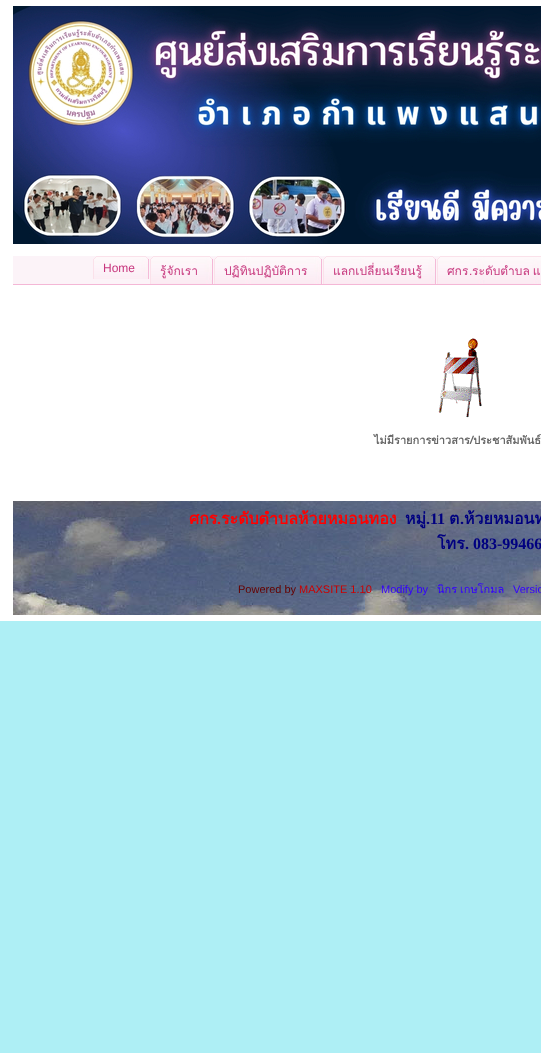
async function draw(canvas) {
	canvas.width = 541;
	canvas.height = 1053;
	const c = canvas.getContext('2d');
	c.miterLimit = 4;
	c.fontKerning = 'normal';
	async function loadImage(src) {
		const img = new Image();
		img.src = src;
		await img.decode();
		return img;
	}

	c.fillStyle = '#aeeff5';
	c.fillRect(0, 0, 541, 1053);
	c.fillStyle = '#fff';
	c.fillRect(0, 0, 541, 621);
	c.drawImage(await loadImage('img1.png'), 13, 6, 528, 238);
	c.fillStyle = '#fcf3f8';
	c.fillRect(13, 256, 427, 28);
	c.fillStyle = '#f4b7d6';
	c.fillRect(13, 284, 528, 1);
	c.drawImage(await loadImage('img2.png'), 93, 256, 4, 23);
	c.drawImage(await loadImage('img3.png'), 97, 256, 52, 23);
	c.font = '12px Liberation Sans';
	c.fillStyle = '#c7377d';
	c.fillText('Home', 103, 272);
	c.drawImage(await loadImage('img4.png'), 150, 256, 4, 28);
	c.drawImage(await loadImage('img5.png'), 154, 256, 59, 28);
	c.font = '12px Loma';
	c.fillText('รู้จักเรา', 160, 275);
	c.drawImage(await loadImage('img4.png'), 214, 256, 4, 28);
	c.drawImage(await loadImage('img6.png'), 218, 256, 104, 28);
	c.fillText('ปฏิทินปฏิบัติการ', 224, 275);
	c.drawImage(await loadImage('img4.png'), 323, 256, 4, 28);
	c.drawImage(await loadImage('img7.png'), 327, 256, 109, 28);
	c.fillText('แลกเปลี่ยนเรียนรู้', 333, 275);
	c.drawImage(await loadImage('img4.png'), 437, 256, 4, 28);
	c.drawImage(await loadImage('img8.png'), 441, 256, 100, 28);
	c.fillText('ศกร', 447, 275);
	c.font = '12px Liberation Sans';
	c.fillText('.', 469, 275);
	c.wordSpacing = '-1px';
	c.font = '12px Loma';
	c.fillText('ระดับตำบล แ', 472, 275);
	c.drawImage(await loadImage('img9.png'), 438, 338, 44, 80);
	c.wordSpacing = '0px';
	c.font = 'bold 11px Loma';
	c.fillStyle = '#666';
	c.fillText('ไม่มีรายการข่าวสาร/ประชาสัมพันธ์', 374, 444);
	c.drawImage(await loadImage('img10.png'), 13, 501, 528, 114);
	c.font = 'bold 16px Loma';
	c.fillStyle = '#f00';
	c.fillText('ศกร', 189, 524);
	c.font = 'bold 16px Liberation Serif';
	c.fillText('.', 217, 524);
	c.font = 'bold 16px Loma';
	c.fillText('ระดับตำบลห้วยหมอนทอง', 221, 524);
	c.fillStyle = '#000080';
	c.fillText('หมู่', 405, 524);
	c.font = 'bold 16px Liberation Serif';
	c.fillText('.11', 426, 524);
	c.font = 'bold 16px Loma';
	c.fillText('ต', 449, 524);
	c.font = 'bold 16px Liberation Serif';
	c.fillText('.', 460, 524);
	c.font = 'bold 16px Loma';
	c.fillText('ห้วยหมอนท', 464, 524);
	c.fillText('โทร', 437, 549);
	c.font = 'bold 16px Liberation Serif';
	c.fillText('. 083-99466', 465, 549);
	c.font = '11px Liberation Sans';
	c.fillStyle = '#600';
	c.fillText('Powered by', 238, 593);
	c.fillStyle = '#c00';
	c.fillText('MAXSITE 1.10', 299, 593);
	c.fillStyle = '#30f';
	c.fillText('Modify by', 381, 593);
	c.font = '11px Loma';
	c.fillText('นิกร', 437, 593);
	c.fillText('เกษโกมล', 460, 593);
	c.font = '11px Liberation Sans';
	c.fillText('Versio', 513, 593);
}

draw(document.querySelector('canvas'));
